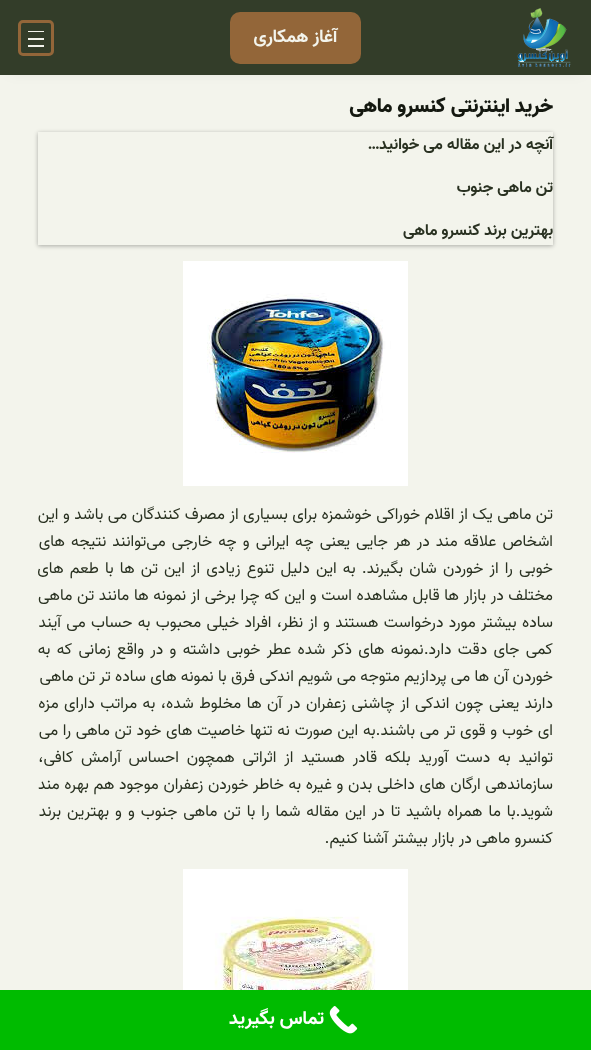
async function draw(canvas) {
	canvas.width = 591;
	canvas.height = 1050;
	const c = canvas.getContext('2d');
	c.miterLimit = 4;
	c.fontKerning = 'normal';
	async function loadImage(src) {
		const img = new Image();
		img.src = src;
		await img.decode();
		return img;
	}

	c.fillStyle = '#f3f4ec';
	c.fillRect(0, 0, 591, 1050);
	c.fillStyle = '#0000001a';
	c.filter = 'blur(7.5px)';
	c.beginPath();
	c.rect(10, 15, 571, 55);
	c.fill();
	c.filter = 'none';
	c.fillStyle = '#333d29';
	c.fillRect(0, 0, 591, 75);
	c.drawImage(await loadImage('img1.png'), 517, 8, 54, 59);
	c.fillStyle = '#936639';
	c.beginPath();
	c.roundRect(230, 12, 131, 52, 10);
	c.fill();
	c.direction = 'rtl';
	c.font = 'bold 18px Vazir';
	c.fillStyle = '#f3f4ec';
	c.fillText('آغاز همکاری', 337, 42);
	c.beginPath();
	c.roundRect(19.5, 21.5, 33, 33, 3.5);
	c.strokeStyle = '#936639';
	c.lineWidth = 3;
	c.stroke();
	for (const [x, y, w, h, color] of [
		[28, 31, 16, 1, '#f3f4ec'],
		[28, 38, 16, 2, '#f3f4ec'],
		[28, 45, 16, 2, '#f3f4ec'],
	]) {
		c.fillStyle = color;
		c.fillRect(x, y, w, h);
	}
	c.font = '900 20px Vazir';
	c.fillStyle = '#141810';
	c.fillText('خرید اینترنتی کنسرو ماهی', 553, 112);
	c.save();
	c.beginPath();
	c.moveTo(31, 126);
	c.lineTo(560, 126);
	c.lineTo(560, 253);
	c.lineTo(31, 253);
	c.closePath();
	c.moveTo(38, 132);
	c.lineTo(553, 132);
	c.lineTo(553, 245);
	c.lineTo(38, 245);
	c.closePath();
	c.clip('evenodd');
	c.fillStyle = '#0000004d';
	c.filter = 'blur(2px)';
	c.beginPath();
	c.rect(38, 133, 515, 113);
	c.fill();
	c.filter = 'none';
	c.restore();
	c.font = 'bold 16px Vazir';
	c.fillStyle = '#293121';
	for (const [text, x, y] of [
		['آنچه در این مقاله می خوانید…', 553, 149],
		['تن ماهی جنوب', 553, 192],
		['بهترین برند کنسرو ماهی', 553, 235],
	]) {
		c.fillText(text, x, y);
	}
	c.drawImage(await loadImage('img2.png'), 183, 261, 225, 225);
	c.wordSpacing = '0.2px';
	c.font = '16px Vazir';
	c.fillText('تن ماهی یک از اقلام خوراکی خوشمزه برای بسیاری از مصرف کنندگان می باشد و این', 553, 519);
	c.wordSpacing = '1.8px';
	c.fillText('اشخاص علاقه مند در هر جایی یعنی چه ایرانی و چه خارجی می‌توانند نتیجه های', 553, 546);
	c.wordSpacing = '1.9px';
	c.fillText('خوبی را از خوردن شان بگیرند. به این دلیل تنوع زیادی از این تن ها با طعم های', 553, 573);
	c.wordSpacing = '0.4px';
	c.fillText('مختلف در بازار ها قابل مشاهده است و این که چرا برخی از نمونه ها مانند تن ماهی', 553, 600);
	c.wordSpacing = '1.1px';
	c.fillText('ساده بیشتر مورد درخواست هستند و از نظر، افراد خیلی محبوب به حساب می ‌آیند', 553, 627);
	c.wordSpacing = '2px';
	c.fillText('کمی جای دقت دارد.نمونه های ذکر شده عطر خوبی داشته و در واقع زمانی که به', 553, 654);
	c.wordSpacing = '0px';
	c.fillText('خوردن آن ها می‌ پردازیم متوجه می‌ شویم اندکی فرق با نمونه های ساده تر تن ماهی', 553, 681);
	c.wordSpacing = '1.25px';
	c.fillText('دارند یعنی چون اندکی از چاشنی زعفران در آن ها مخلوط شده، به مراتب دارای مزه', 553, 708);
	c.wordSpacing = '0.5px';
	c.fillText('ای خوب و قوی تر می باشند.به این صورت نه تنها خاصیت های خود تن ماهی را می', 553, 735);
	c.wordSpacing = '3.5px';
	c.fillText('‌توانید به دست آورید بلکه قادر هستید از اثراتی همچون احساس آرامش کافی،', 553, 762);
	c.wordSpacing = '0.4px';
	c.fillText('سازماندهی ارگان‌ های داخلی بدن و غیره به خاطر خوردن زعفران موجود هم بهره مند', 553, 789);
	c.wordSpacing = '1.75px';
	c.fillText('شوید.با ما همراه باشید تا در این مقاله شما را با تن ماهی جنوب و و بهترین برند', 553, 816);
	c.wordSpacing = '0px';
	c.fillText('کنسرو ماهی در بازار بیشتر آشنا کنیم.', 553, 843);
	c.drawImage(await loadImage('img3.png'), 183, 869, 225, 121);
	c.fillStyle = '#0b0';
	c.fillRect(0, 990, 591, 60);
	c.drawImage(await loadImage('img4.png'), 329, 1006, 29, 28);
	c.font = 'bold 19px Vazir';
	c.fillStyle = '#fff';
	c.fillText('تماس بگیرید', 324, 1024);
}

draw(document.querySelector('canvas'));
